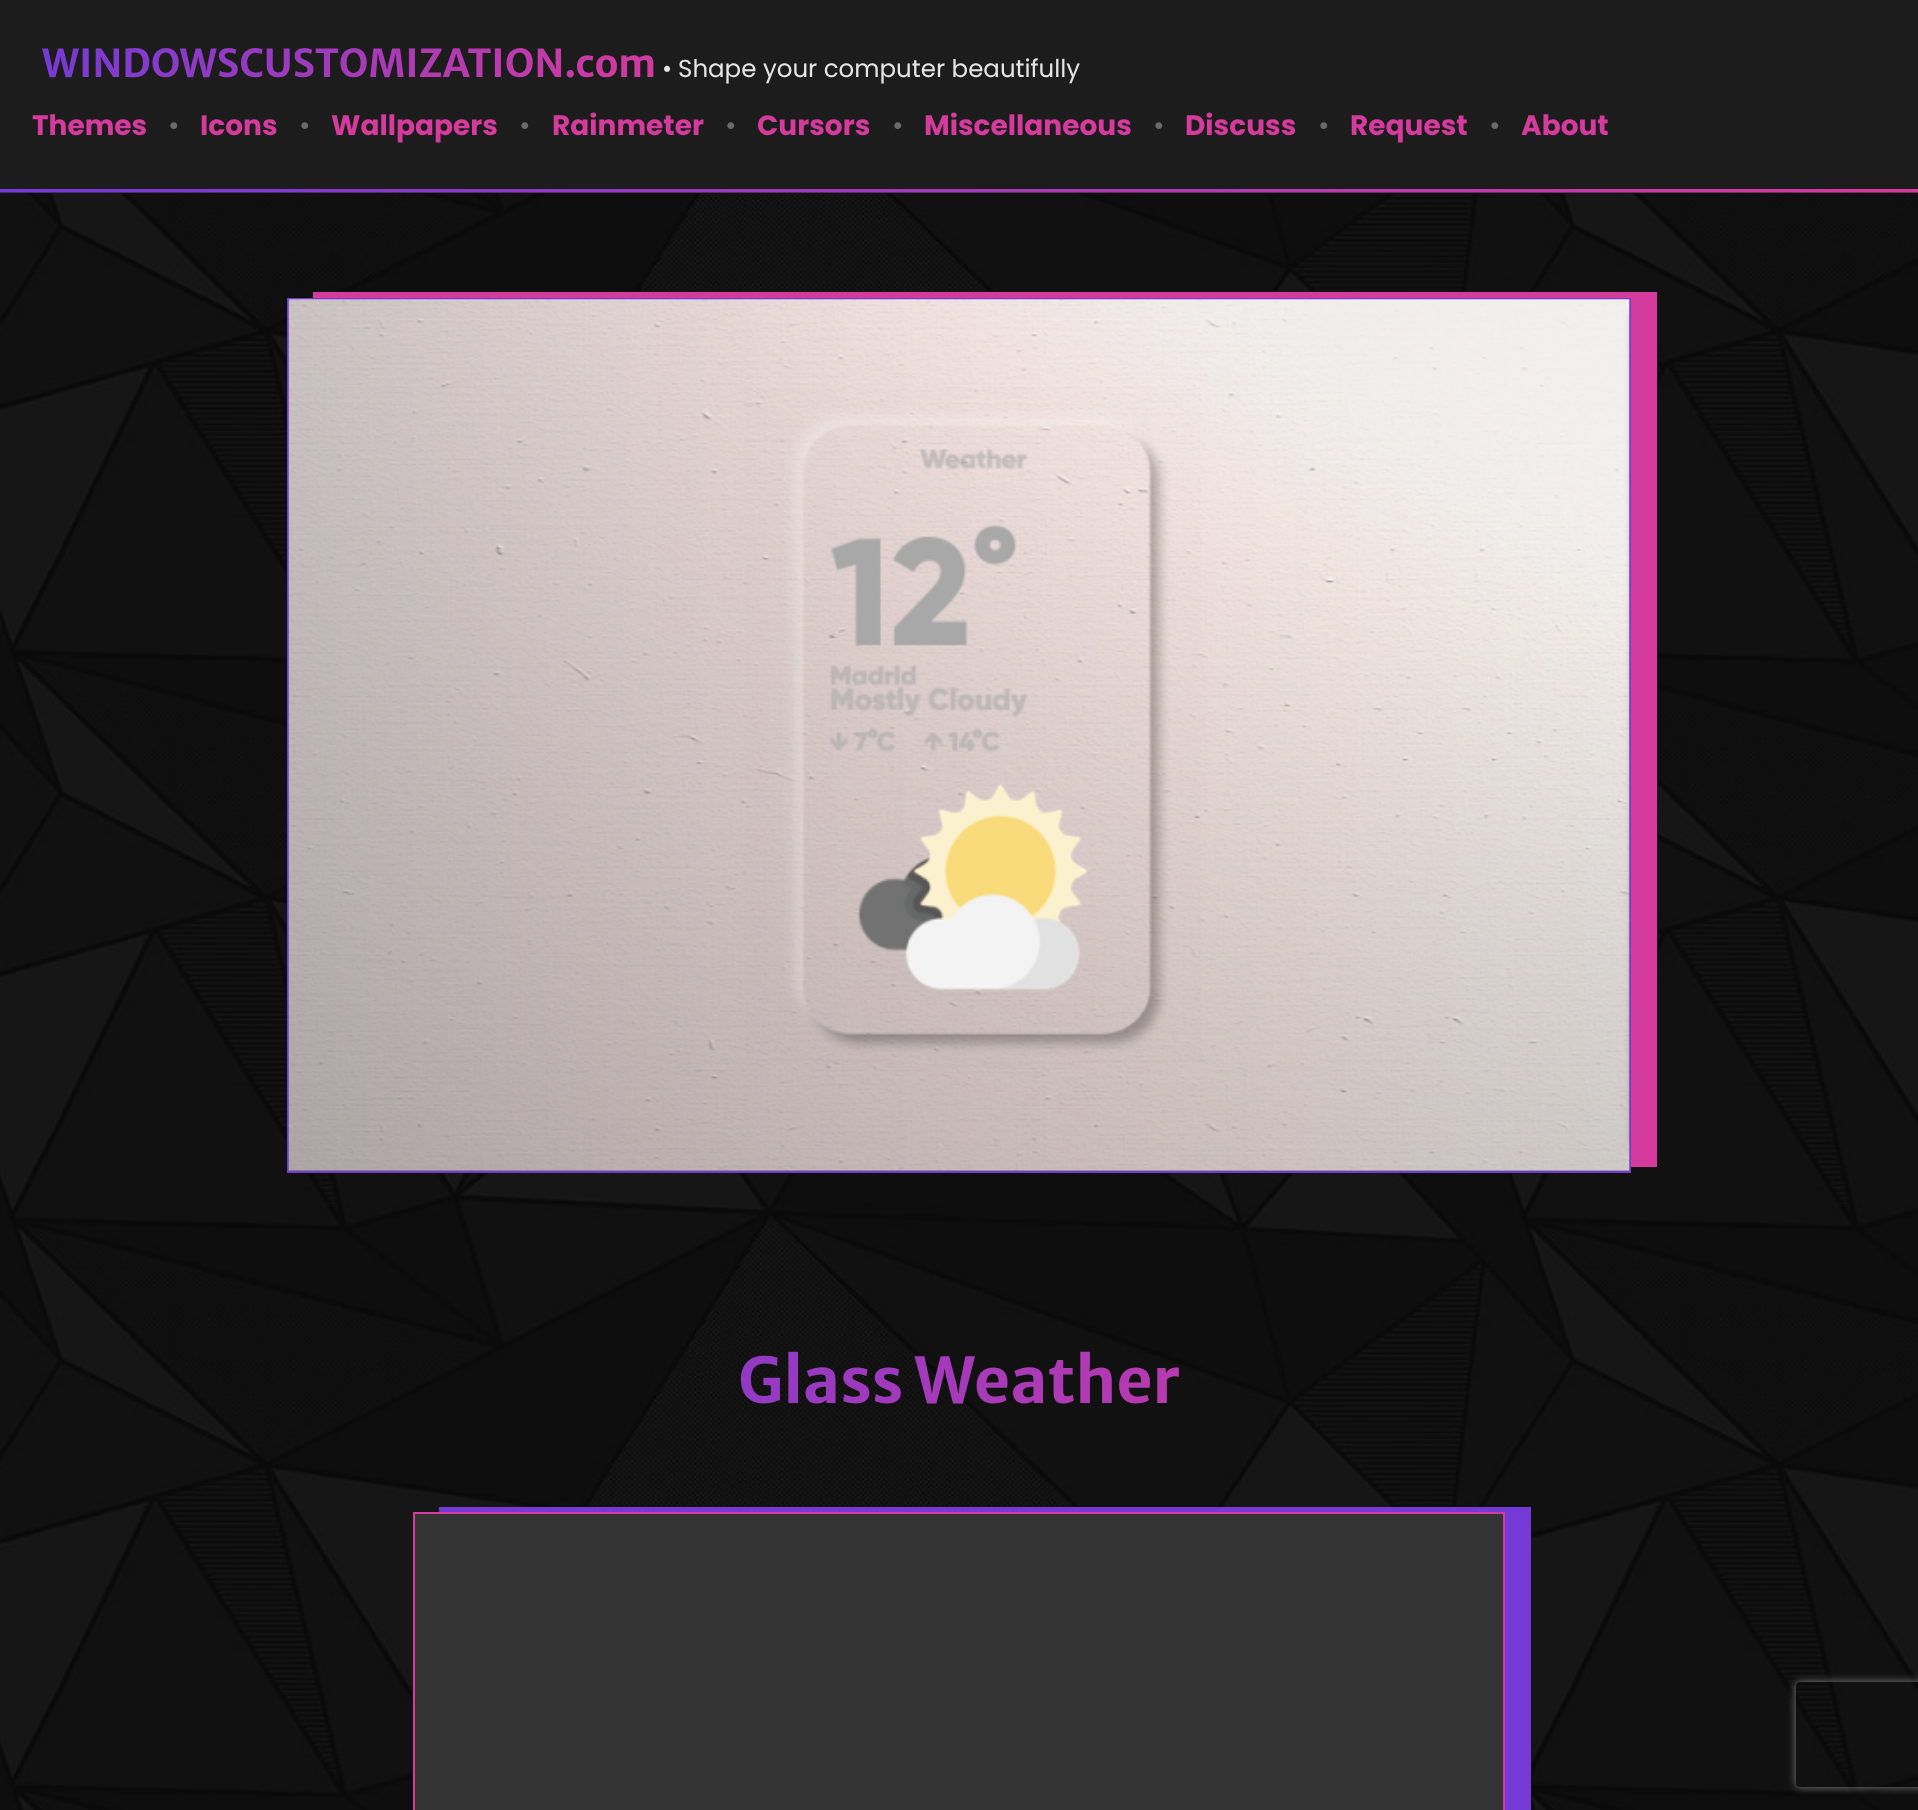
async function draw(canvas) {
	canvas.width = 1918;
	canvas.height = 1810;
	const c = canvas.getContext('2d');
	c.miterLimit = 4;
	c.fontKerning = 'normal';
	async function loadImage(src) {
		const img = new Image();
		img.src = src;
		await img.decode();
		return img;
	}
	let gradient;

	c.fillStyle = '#fff';
	c.fillRect(0, 0, 1918, 1810);
	c.drawImage(await loadImage('img1.png'), 0, 193, 1918, 1617);
	c.fillStyle = '#1c1c1c';
	c.fillRect(0, 0, 1918, 193);
	c.drawImage(await loadImage('img2.png'), 0, 189, 1918, 4);
	c.font = 'bold 38.5px Merriweather Sans';
	gradient = c.createLinearGradient(138, -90, 560, 216);
	gradient.addColorStop(0, '#743ad5');
	gradient.addColorStop(1, '#d53a9d');
	c.fillStyle = gradient;
	c.fillText('WINDOWSCUSTOMIZATION.com', 42, 77);
	c.font = '24.5px Poppins';
	c.fillStyle = '#e5e5e5';
	c.fillText('•', 662, 77);
	c.fillText('Shape your computer beautifully', 678, 77);
	c.font = 'bold 28px Poppins';
	c.fillStyle = '#d53a9d';
	c.fillText('Themes', 32, 135);
	c.font = '28px Poppins';
	c.fillStyle = '#6a6a6a';
	c.fillText('•', 168, 135);
	c.font = 'bold 28px Poppins';
	c.fillStyle = '#d53a9d';
	c.fillText('Icons', 200, 135);
	c.font = '28px Poppins';
	c.fillStyle = '#6a6a6a';
	c.fillText('•', 299, 135);
	c.font = 'bold 28px Poppins';
	c.fillStyle = '#d53a9d';
	c.fillText('Wallpapers', 331, 135);
	c.font = '28px Poppins';
	c.fillStyle = '#6a6a6a';
	c.fillText('•', 519, 135);
	c.font = 'bold 28px Poppins';
	c.fillStyle = '#d53a9d';
	c.fillText('Rainmeter', 552, 135);
	c.font = '28px Poppins';
	c.fillStyle = '#6a6a6a';
	c.fillText('•', 725, 135);
	c.font = 'bold 28px Poppins';
	c.fillStyle = '#d53a9d';
	c.fillText('Cursors', 757, 135);
	c.font = '28px Poppins';
	c.fillStyle = '#6a6a6a';
	c.fillText('•', 892, 135);
	c.font = 'bold 28px Poppins';
	c.fillStyle = '#d53a9d';
	c.fillText('Miscellaneous', 924, 135);
	c.font = '28px Poppins';
	c.fillStyle = '#6a6a6a';
	c.fillText('•', 1153, 135);
	c.font = 'bold 28px Poppins';
	c.fillStyle = '#d53a9d';
	c.fillText('Discuss', 1185, 135);
	c.font = '28px Poppins';
	c.fillStyle = '#6a6a6a';
	c.fillText('•', 1318, 135);
	c.font = 'bold 28px Poppins';
	c.fillStyle = '#d53a9d';
	c.fillText('Request', 1350, 135);
	c.font = '28px Poppins';
	c.fillStyle = '#6a6a6a';
	c.fillText('•', 1489, 135);
	c.font = 'bold 28px Poppins';
	c.fillStyle = '#d53a9d';
	c.fillText('About', 1521, 135);
	c.beginPath();
	c.moveTo(313, 292);
	c.lineTo(313, 298);
	c.lineTo(1631, 298);
	c.lineTo(1631, 1167);
	c.lineTo(1657, 1167);
	c.lineTo(1657, 292);
	c.closePath();
	c.fill();
	c.strokeStyle = '#743ad5';
	c.lineWidth = 2;
	c.strokeRect(288, 299, 1342, 873);
	c.drawImage(await loadImage('img3.png'), 288, 299, 1342, 872);
	c.font = 'bold 63px Merriweather Sans';
	gradient = c.createLinearGradient(582, 1108, 1336, 1656);
	gradient.addColorStop(0, '#743ad5');
	gradient.addColorStop(1, '#d53a9d');
	c.fillStyle = gradient;
	c.fillText('Glass Weather', 738, 1403);
	c.fillStyle = '#743ad5';
	c.beginPath();
	c.moveTo(439, 1507);
	c.lineTo(439, 1512);
	c.lineTo(1505, 1512);
	c.lineTo(1505, 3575);
	c.lineTo(1531, 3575);
	c.lineTo(1531, 1507);
	c.closePath();
	c.fill();
	c.fillStyle = '#333';
	c.beginPath();
	c.rect(414, 1513, 1090, 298);
	c.fill();
	c.strokeStyle = '#d53a9d';
	c.stroke();
	c.save();
	c.beginPath();
	c.moveTo(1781, 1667);
	c.lineTo(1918, 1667);
	c.lineTo(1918, 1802);
	c.lineTo(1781, 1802);
	c.closePath();
	c.moveTo(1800, 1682);
	c.lineTo(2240, 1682);
	c.bezierCurveTo(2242, 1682, 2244, 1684, 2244, 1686);
	c.lineTo(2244, 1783);
	c.bezierCurveTo(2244, 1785, 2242, 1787, 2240, 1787);
	c.lineTo(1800, 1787);
	c.bezierCurveTo(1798, 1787, 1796, 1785, 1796, 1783);
	c.lineTo(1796, 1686);
	c.bezierCurveTo(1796, 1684, 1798, 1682, 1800, 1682);
	c.closePath();
	c.clip('evenodd');
	c.fillStyle = '#808080';
	c.filter = 'blur(4.5px)';
	c.beginPath();
	c.roundRect(1796, 1682, 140, 105, 4);
	c.fill();
	c.filter = 'none';
	c.restore();
}

draw(document.querySelector('canvas'));
